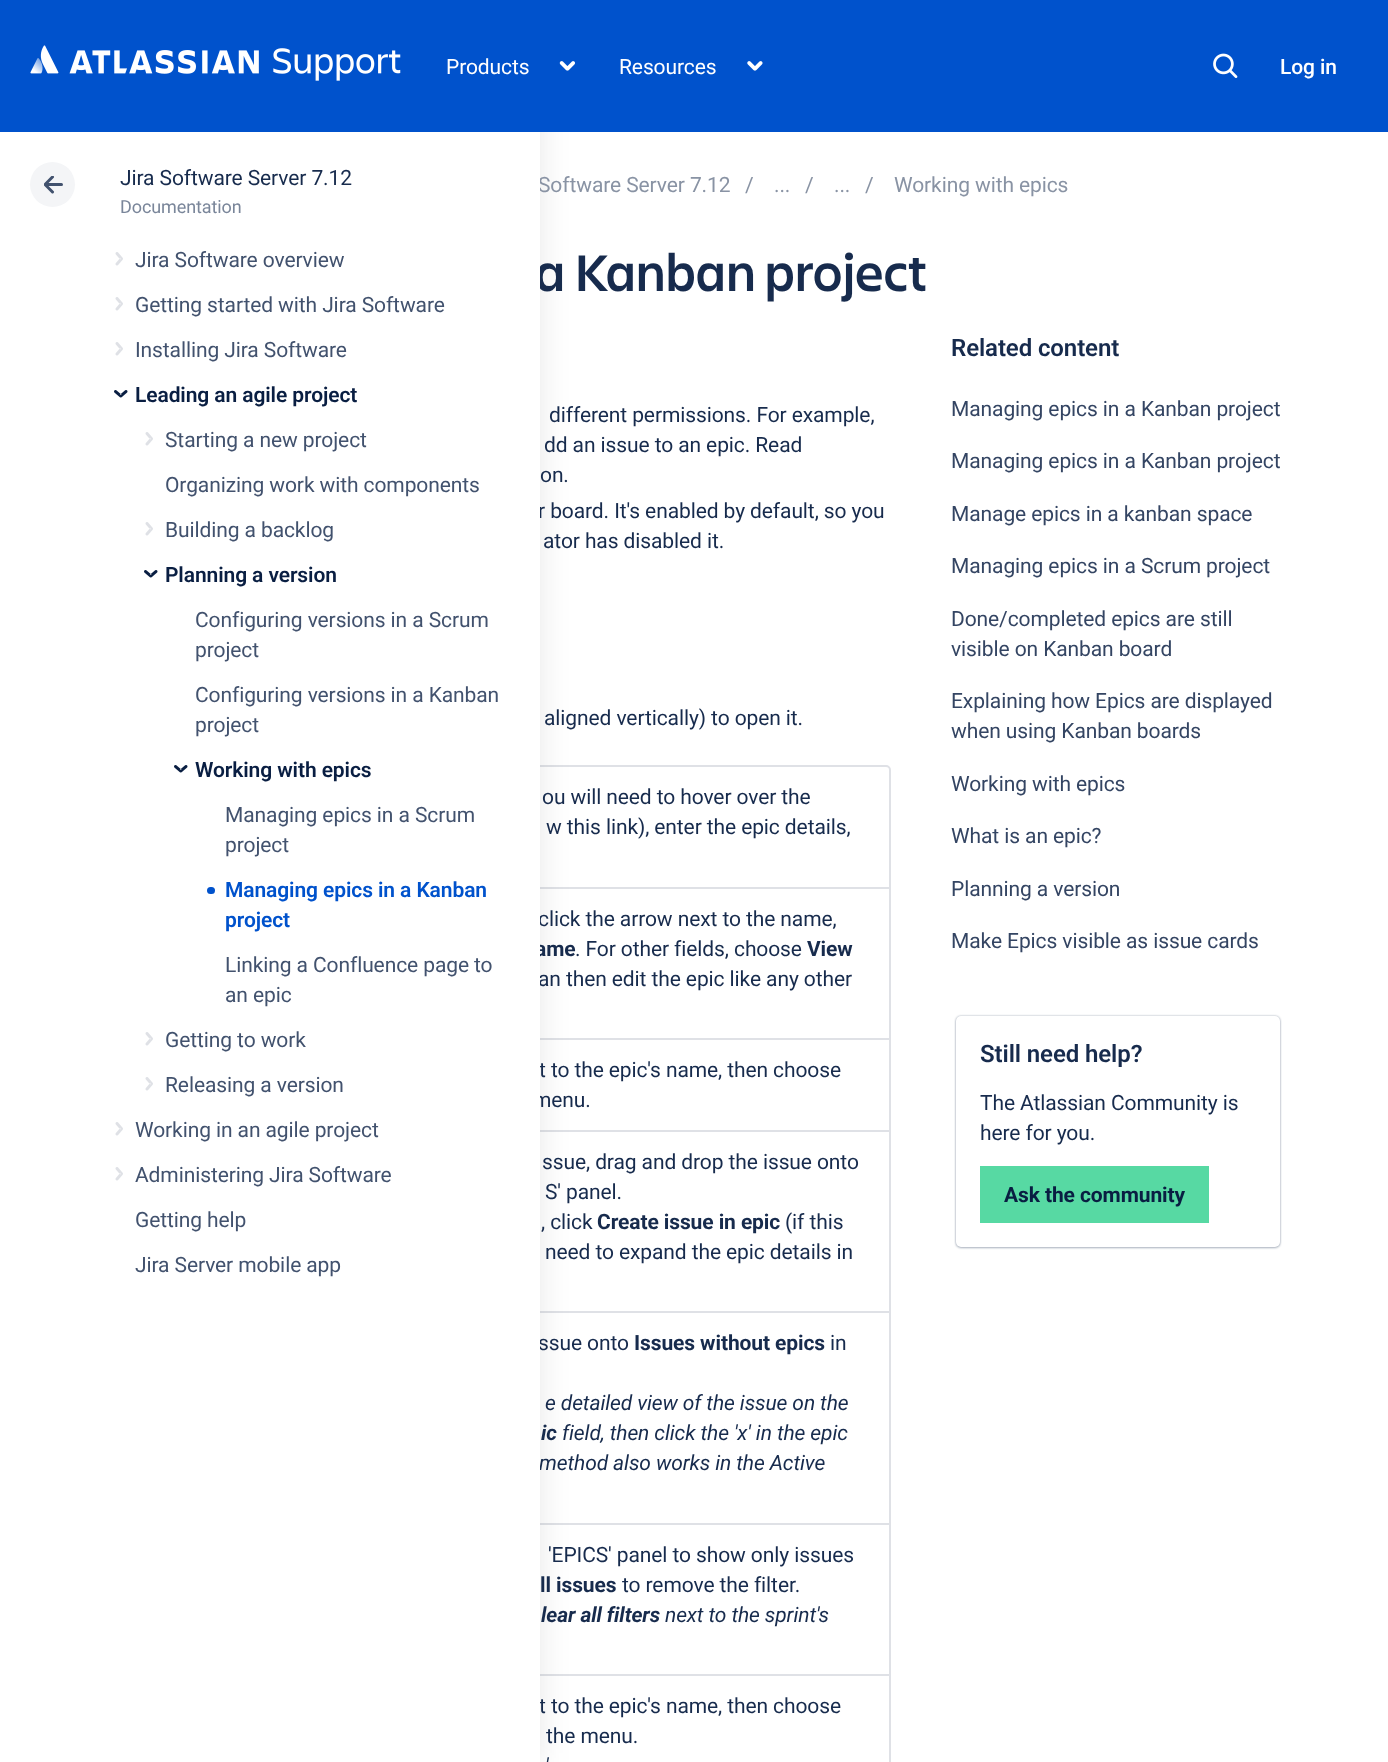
async function draw(canvas) {
	canvas.width = 1388;
	canvas.height = 1762;
	const c = canvas.getContext('2d');
	c.miterLimit = 4;
	c.fontKerning = 'normal';
	async function loadImage(src) {
		const img = new Image();
		img.src = src;
		await img.decode();
		return img;
	}

	c.fillStyle = '#fff';
	c.fillRect(0, 0, 1388, 1762);
	c.beginPath();
	c.roundRect(166, 766, 724, 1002, 4);
	c.strokeStyle = '#dfe1e6';
	c.lineWidth = 2;
	c.stroke();
	for (const [x, y, w, h, color] of [
		[540, 887, 350, 2, '#dfe1e6'],
		[540, 1038, 350, 2, '#dfe1e6'],
		[540, 1130, 350, 2, '#dfe1e6'],
		[540, 1311, 350, 2, '#dfe1e6'],
		[540, 1523, 350, 2, '#dfe1e6'],
		[540, 1674, 350, 2, '#dfe1e6'],
	]) {
		c.fillStyle = color;
		c.fillRect(x, y, w, h);
	}
	c.fillStyle = '#1616161a';
	c.filter = 'blur(15px)';
	c.beginPath();
	c.rect(0, 0, 540, 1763);
	c.fill();
	c.filter = 'none';
	c.fillStyle = '#0052cc';
	c.fillRect(0, 0, 1388, 132);
	c.drawImage(await loadImage('img1.png'), 30, 45, 371, 36);
	c.letterSpacing = '-0.1px';
	c.font = '21px Roboto';
	c.fillStyle = '#fff';
	c.fillText('Products', 446, 74);
	c.drawImage(await loadImage('img2.png'), 559, 61, 16, 10);
	c.fillText('Resources', 619, 74);
	c.drawImage(await loadImage('img3.png'), 747, 61, 16, 10);
	c.drawImage(await loadImage('img4.png'), 1213, 53, 25, 25);
	c.font = '500 21px Roboto';
	c.fillText('Log in', 1280, 74);
	c.font = '21px Roboto';
	c.fillStyle = '#8993a4';
	c.fillText('Software Server 7.12', 538, 192);
	c.letterSpacing = '0px';
	c.font = '600 54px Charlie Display';
	c.fillStyle = '#172b4d';
	c.fillText('a Kanban project', 535, 291);
	c.letterSpacing = '-0.1px';
	c.font = '21px Roboto';
	c.fillText('r board. It\'s enabled by default, so you', 538, 518);
	c.fillText('click the arrow next to the name,', 538, 926);
	c.font = 'bold 21px Roboto';
	c.fillText('ame', 535, 956);
	c.font = '21px Roboto';
	for (const [text, x, y] of [
		['an then edit the epic like any other', 538, 986],
		['t to the epic\'s name, then choose', 539, 1077],
		['menu.', 533, 1107],
		['ssue onto', 538, 1350],
	]) {
		c.fillText(text, x, y);
	}
	c.font = 'italic 21px Roboto';
	c.fillText('method also works in the Active', 539, 1470);
	c.font = '21px Roboto';
	c.fillText('t to the epic\'s name, then choose', 539, 1713);
	c.fillStyle = '#fff';
	c.fillRect(0, 132, 540, 1630);
	c.fillStyle = '#f4f5f7';
	c.beginPath();
	c.arc(52.5, 184.5, 22.5, 0, 2 * Math.PI);
	c.fill();
	c.fillStyle = '#42526e';
	c.beginPath();
	c.roundRect(45, 183, 18, 3, 1.5);
	c.fill();
	c.save();
	c.beginPath();
	c.rect(44, 176, 19, 18);
	c.clip();
	c.beginPath();
	c.moveTo(52.5, 192);
	c.lineTo(45, 184.5);
	c.lineTo(52.5, 177);
	c.strokeStyle = '#42526e';
	c.lineWidth = 3;
	c.lineCap = 'round';
	c.lineJoin = 'round';
	c.stroke();
	c.restore();
	c.fillStyle = '#172b4d';
	c.fillText('Jira Software Server 7.12', 120, 185);
	c.font = '18px Roboto';
	c.fillStyle = '#7a869a';
	c.fillText('Documentation', 120, 213);
	c.drawImage(await loadImage('img5.png'), 115, 252, 8, 14);
	c.font = '21px Roboto';
	c.fillStyle = '#42526e';
	c.fillText('Jira Software overview', 135, 267);
	c.drawImage(await loadImage('img5.png'), 115, 297, 8, 14);
	c.fillText('Getting started with Jira Software', 135, 312);
	c.drawImage(await loadImage('img5.png'), 115, 342, 8, 14);
	c.fillText('Installing Jira Software', 135, 357);
	c.drawImage(await loadImage('img6.png'), 114, 390, 14, 8);
	c.font = '600 21px Roboto';
	c.fillStyle = '#091e42';
	c.fillText('Leading an agile project', 135, 402);
	c.drawImage(await loadImage('img5.png'), 145, 432, 8, 14);
	c.font = '21px Roboto';
	c.fillStyle = '#42526e';
	c.fillText('Starting a new project', 165, 447);
	c.fillText('Organizing work with components', 165, 492);
	c.drawImage(await loadImage('img5.png'), 145, 522, 8, 14);
	c.fillText('Building a backlog', 165, 537);
	c.drawImage(await loadImage('img6.png'), 144, 570, 14, 8);
	c.font = '600 21px Roboto';
	c.fillStyle = '#091e42';
	c.fillText('Planning a version', 165, 582);
	c.font = '21px Roboto';
	c.fillStyle = '#42526e';
	for (const [text, x, y] of [
		['Configuring versions in a Scrum', 195, 627],
		['project', 195, 657],
		['Configuring versions in a Kanban', 195, 702],
		['project', 195, 732],
	]) {
		c.fillText(text, x, y);
	}
	c.drawImage(await loadImage('img6.png'), 174, 765, 14, 8);
	c.font = '600 21px Roboto';
	c.fillStyle = '#091e42';
	c.fillText('Working with epics', 195, 777);
	c.font = '21px Roboto';
	c.fillStyle = '#42526e';
	c.fillText('Managing epics in a Scrum', 225, 822);
	c.fillText('project', 225, 852);
	c.fillStyle = '#0052cc';
	c.beginPath();
	c.roundRect(207, 887, 8, 7, 3.5);
	c.fill();
	c.font = '600 21px Roboto';
	c.fillText('Managing epics in a Kanban', 225, 897);
	c.fillText('project', 225, 927);
	c.font = '21px Roboto';
	c.fillStyle = '#42526e';
	c.fillText('Linking a Confluence page to', 225, 972);
	c.fillText('an epic', 225, 1002);
	c.drawImage(await loadImage('img5.png'), 145, 1032, 8, 14);
	c.fillText('Getting to work', 165, 1047);
	c.drawImage(await loadImage('img5.png'), 145, 1077, 8, 14);
	c.fillText('Releasing a version', 165, 1092);
	c.drawImage(await loadImage('img5.png'), 115, 1122, 8, 14);
	c.fillText('Working in an agile project', 135, 1137);
	c.drawImage(await loadImage('img5.png'), 115, 1167, 8, 14);
	for (const [text, x, y] of [
		['Administering Jira Software', 135, 1182],
		['Getting help', 135, 1227],
		['Jira Server mobile app', 135, 1272],
	]) {
		c.fillText(text, x, y);
	}
	c.fillStyle = '#8993a4';
	for (const [text, x, y] of [
		['/', 745, 192],
		['...', 774, 192],
		['/', 805, 192],
		['...', 834, 192],
		['/', 865, 192],
		['Working with epics', 894, 192],
	]) {
		c.fillText(text, x, y);
	}
	c.fillStyle = '#172b4d';
	for (const [text, x, y] of [
		['different permissions. For example,', 549, 422],
		['dd an issue to an epic. Read', 544, 452],
		['on.', 540, 482],
		['ator has disabled it.', 543, 548],
		['aligned vertically) to open it.', 544, 725],
		['ou will need to hover over the', 542, 804],
		['w this link), enter the epic details,', 546, 834],
		['. For other fields, choose', 575, 956],
	]) {
		c.fillText(text, x, y);
	}
	c.font = 'bold 21px Roboto';
	c.fillText('View', 807, 956);
	c.font = '21px Roboto';
	for (const [text, x, y] of [
		['ssue, drag and drop the issue onto', 542, 1169],
		['S\' panel.', 545, 1199],
		[', click', 541, 1229],
	]) {
		c.fillText(text, x, y);
	}
	c.font = 'bold 21px Roboto';
	c.fillText('Create issue in epic', 597, 1229);
	c.font = '21px Roboto';
	c.fillText('(if this', 785, 1229);
	c.fillText('need to expand the epic details in', 545, 1259);
	c.font = 'bold 21px Roboto';
	c.fillText('Issues without epics', 634, 1350);
	c.font = '21px Roboto';
	c.fillText('in', 830, 1350);
	c.font = 'italic 21px Roboto';
	c.fillText('e detailed view of the issue on the', 545, 1410);
	c.font = 'italic bold 21px Roboto';
	c.fillText('ic', 541, 1440);
	c.font = 'italic 21px Roboto';
	c.fillText('field, then click the \'x\' in the epic', 562, 1440);
	c.font = '21px Roboto';
	c.fillText('\'EPICS\' panel to show only issues', 548, 1562);
	c.font = 'bold 21px Roboto';
	c.fillText('ll issues', 540, 1592);
	c.font = '21px Roboto';
	c.fillText('to remove the filter.', 622, 1592);
	c.font = 'italic bold 21px Roboto';
	c.fillText('lear all filters', 541, 1622);
	c.font = 'italic 21px Roboto';
	c.fillText('next to the sprint\'s', 665, 1622);
	c.font = '21px Roboto';
	c.fillText('the menu.', 546, 1743);
	c.font = 'italic 21px Roboto';
	c.fillText('\'', 545, 1773);
	c.font = '600 24px Roboto';
	c.fillText('Related content', 951, 356);
	c.font = '21px Roboto';
	c.fillStyle = '#344563';
	for (const [text, x, y] of [
		['Managing epics in a Kanban project', 951, 416],
		['Managing epics in a Kanban project', 951, 468],
		['Manage epics in a kanban space', 951, 521],
		['Managing epics in a Scrum project', 951, 573],
		['Done/completed epics are still', 951, 626],
		['visible on Kanban board', 951, 656],
		['Explaining how Epics are displayed', 951, 708],
		['when using Kanban boards', 951, 738],
		['Working with epics', 951, 791],
		['What is an epic?', 951, 843],
		['Planning a version', 951, 896],
		['Make Epics visible as issue cards', 951, 948],
	]) {
		c.fillText(text, x, y);
	}
	c.fillStyle = '#091e424f';
	c.filter = 'blur(1px)';
	c.beginPath();
	c.roundRect(956, 1016, 324, 231, 5);
	c.fill();
	c.filter = 'none';
	c.fillStyle = '#091e4240';
	c.filter = 'blur(1px)';
	c.beginPath();
	c.roundRect(956, 1017, 324, 231, 5);
	c.fill();
	c.filter = 'none';
	c.fillStyle = '#fff';
	c.beginPath();
	c.roundRect(956, 1016, 324, 231, 5);
	c.fill();
	c.font = '600 24px Roboto';
	c.fillStyle = '#172b4d';
	c.fillText('Still need help?', 980, 1062);
	c.font = '21px Roboto';
	c.fillText('The Atlassian Community is', 980, 1110);
	c.fillText('here for you.', 980, 1140);
	c.fillStyle = '#57d9a3';
	c.fillRect(980, 1166, 229, 57);
	c.font = 'bold 21px Roboto';
	c.fillStyle = '#091e42';
	c.fillText('Ask the community', 1004, 1202);
}

draw(document.querySelector('canvas'));
